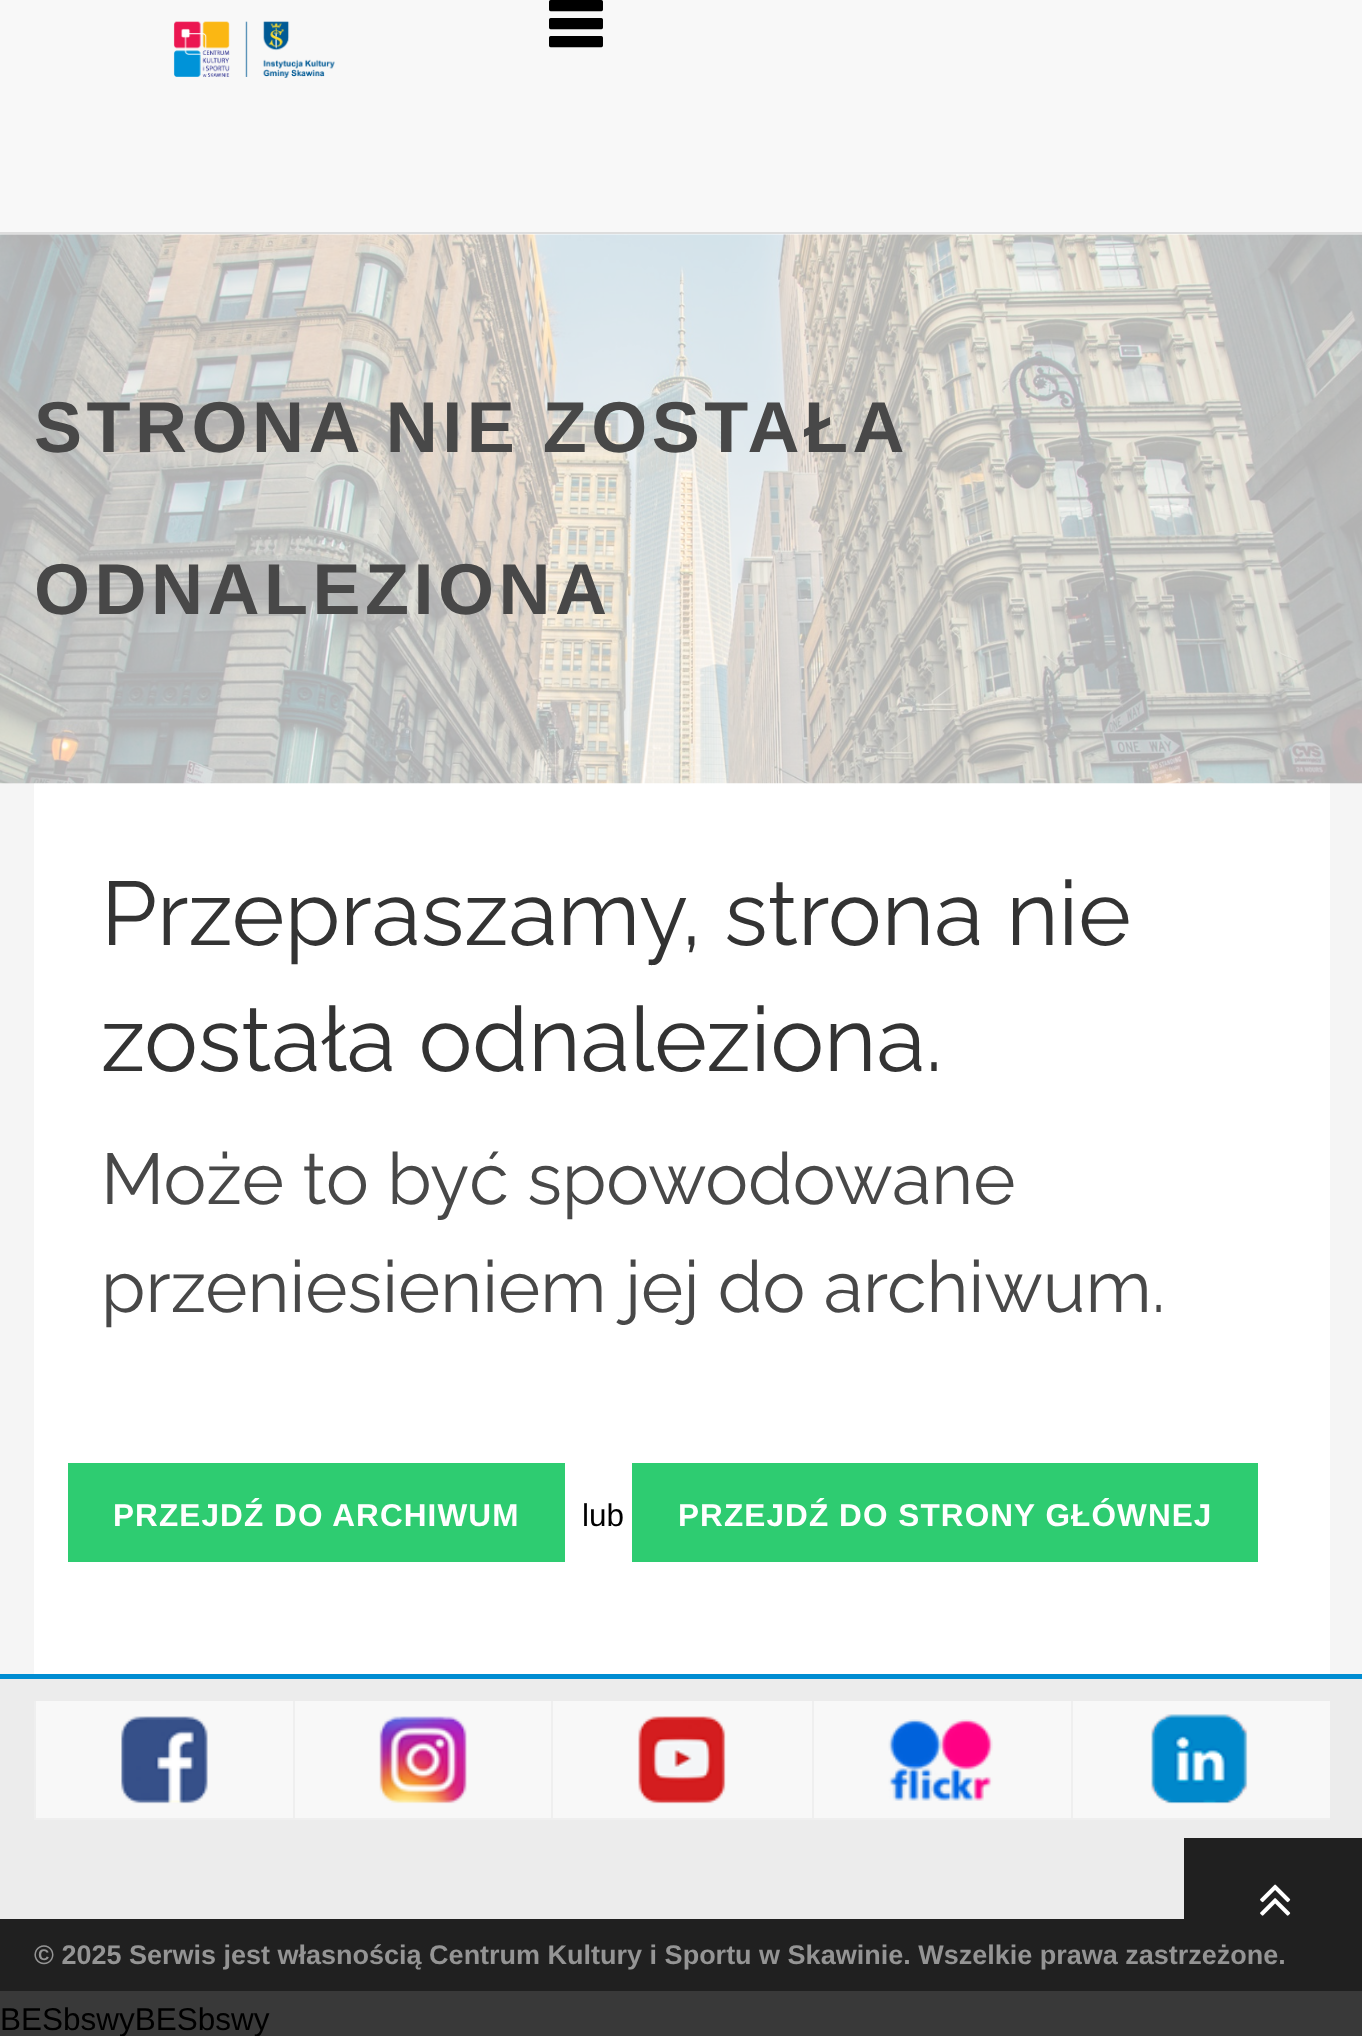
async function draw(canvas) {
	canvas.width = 1362;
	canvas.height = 2036;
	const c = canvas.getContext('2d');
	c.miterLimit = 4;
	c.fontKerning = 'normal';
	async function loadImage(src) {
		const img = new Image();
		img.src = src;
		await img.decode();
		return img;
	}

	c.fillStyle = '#393939';
	c.fillRect(0, 0, 1362, 2036);
	c.fillStyle = '#f8f8f8';
	c.fillRect(0, 0, 1362, 232);
	c.fillStyle = '#ddd';
	c.fillRect(0, 232, 1362, 2);
	c.drawImage(await loadImage('img1.png'), 173, 21, 162, 57);
	c.drawImage(await loadImage('img2.png'), 549, 0, 54, 48);
	for (const [x, y, w, h, color] of [
		[0, 234, 1362, 549, '#fff'],
		[0, 783, 1362, 891, '#f5f5f5'],
		[34, 783, 1296, 891, '#fff'],
	]) {
		c.fillStyle = color;
		c.fillRect(x, y, w, h);
	}
	c.drawImage(await loadImage('img3.png'), 0, 234, 1362, 550);
	c.letterSpacing = '4.5px';
	c.wordSpacing = '-1px';
	c.font = 'bold 72px Liberation Sans';
	c.fillStyle = '#484848';
	c.fillText('STRONA NIE ZOSTAŁA', 34, 452);
	c.wordSpacing = '0px';
	c.fillText('ODNALEZIONA', 34, 614);
	c.letterSpacing = '0px';
	c.font = '100 90px Raleway';
	c.fillStyle = '#333';
	c.fillText('Przepraszamy, strona nie', 101, 945);
	c.fillText('została odnaleziona.', 101, 1071);
	c.font = '100 72px Raleway';
	c.fillStyle = '#484848';
	c.fillText('Może to być spowodowane', 101, 1204);
	c.fillText('przeniesieniem jej do archiwum.', 101, 1312);
	c.fillStyle = '#2ecc71';
	c.fillRect(68, 1463, 497, 99);
	c.letterSpacing = '1.1px';
	c.font = 'bold 31.5px Liberation Sans';
	c.fillStyle = '#fff';
	c.fillText('PRZEJDŹ DO ARCHIWUM', 113, 1526);
	c.letterSpacing = '0px';
	c.font = '31.5px Liberation Sans';
	c.fillStyle = '#000';
	c.fillText('lub', 582, 1526);
	c.fillStyle = '#2ecc71';
	c.fillRect(632, 1463, 626, 99);
	c.letterSpacing = '1.1px';
	c.font = 'bold 31.5px Liberation Sans';
	c.fillStyle = '#fff';
	c.fillText('PRZEJDŹ DO STRONY GŁÓWNEJ', 678, 1526);
	for (const [x, y, w, h, color] of [
		[0, 1679, 1362, 240, '#ececec'],
		[0, 1674, 1362, 5, '#008dd2'],
		[36, 1701, 257, 117, '#f8f8f8'],
	]) {
		c.fillStyle = color;
		c.fillRect(x, y, w, h);
	}
	c.drawImage(await loadImage('img4.png'), 121, 1716, 87, 88);
	for (const [x, y, w, h, color] of [
		[34, 1818, 1296, 2, '#efefef'],
		[34, 1701, 2, 119, '#efefef'],
		[295, 1701, 256, 117, '#f8f8f8'],
	]) {
		c.fillStyle = color;
		c.fillRect(x, y, w, h);
	}
	c.drawImage(await loadImage('img5.png'), 379, 1716, 88, 88);
	c.fillStyle = '#efefef';
	c.fillRect(293, 1701, 2, 119);
	c.fillStyle = '#f8f8f8';
	c.fillRect(553, 1701, 259, 117);
	c.drawImage(await loadImage('img6.png'), 638, 1716, 88, 88);
	c.fillStyle = '#efefef';
	c.fillRect(551, 1701, 2, 119);
	c.fillStyle = '#f8f8f8';
	c.fillRect(814, 1701, 257, 117);
	c.drawImage(await loadImage('img7.png'), 888, 1719, 105, 82);
	c.fillStyle = '#efefef';
	c.fillRect(812, 1701, 2, 119);
	c.fillStyle = '#f8f8f8';
	c.fillRect(1073, 1701, 257, 117);
	c.drawImage(await loadImage('img8.png'), 1151, 1714, 97, 90);
	c.fillStyle = '#efefef';
	c.fillRect(1071, 1701, 2, 119);
	c.fillStyle = '#202020';
	c.fillRect(1184, 1838, 178, 81);
	c.drawImage(await loadImage('img9.png'), 1260, 1884, 31, 19);
	c.drawImage(await loadImage('img10.png'), 1260, 1898, 31, 18);
	c.fillRect(0, 1919, 1362, 72);
	c.letterSpacing = '0px';
	c.font = 'bold 27px Liberation Sans';
	c.fillStyle = '#949494';
	c.fillText('© 2025 Serwis jest własnością Centrum Kultury i Sportu w Skawinie. Wszelkie prawa zastrzeżone.', 34, 1964);
	c.font = '31.5px Liberation Sans';
	c.fillStyle = '#000';
	c.fillText('BESbswyBESbswy', 0, 2030);
}

draw(document.querySelector('canvas'));
